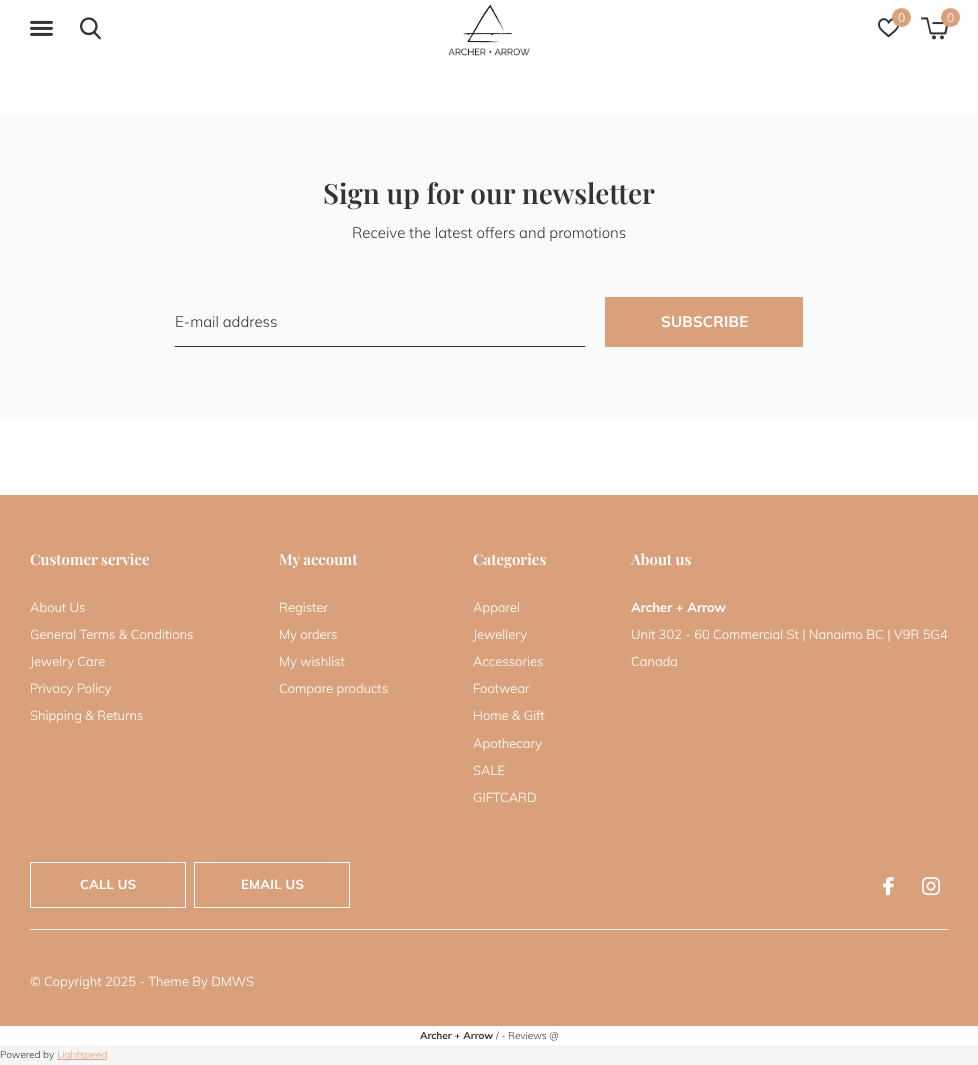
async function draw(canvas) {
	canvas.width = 978;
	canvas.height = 1065;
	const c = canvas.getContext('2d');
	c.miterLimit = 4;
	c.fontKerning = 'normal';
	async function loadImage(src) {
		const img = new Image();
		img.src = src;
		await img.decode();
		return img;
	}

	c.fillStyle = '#f5f5f5';
	c.fillRect(0, 0, 978, 1065);
	c.fillStyle = '#fff';
	c.fillRect(0, 0, 978, 1045);
	c.drawImage(await loadImage('img1.png'), 448, 4, 82, 52);
	c.drawImage(await loadImage('img2.png'), 80, 17, 21, 23);
	c.drawImage(await loadImage('img3.png'), 878, 18, 21, 20);
	c.fillStyle = '#d9a17b';
	c.beginPath();
	c.arc(901.5, 17.5, 9.5, 0, 2 * Math.PI);
	c.fill();
	c.font = '300 12px Muli';
	c.fillStyle = '#fff';
	c.fillText('0', 898, 22);
	c.drawImage(await loadImage('img4.png'), 921, 17, 27, 23);
	c.fillStyle = '#d9a17b';
	c.beginPath();
	c.arc(950.5, 17.5, 9.5, 0, 2 * Math.PI);
	c.fill();
	c.fillStyle = '#fff';
	c.fillText('0', 947, 22);
	c.drawImage(await loadImage('img5.png'), 30, 20, 23, 16);
	c.fillStyle = '#fafafa';
	c.fillRect(0, 115, 978, 305);
	c.font = '600 28px Playfair Display';
	c.fillStyle = '#333330';
	c.fillText('Sign up for our newsletter', 323, 204);
	c.font = '300 15px Muli';
	c.fillText('Receive the latest offers and promotions', 352, 238);
	c.fillStyle = '#333';
	c.fillRect(175, 346, 410, 1);
	c.fillStyle = '#333330';
	c.fillText('E-mail address', 175, 327);
	c.fillStyle = '#d9a17b';
	c.fillRect(605, 297, 198, 50);
	c.letterSpacing = '0.25px';
	c.font = 'bold 15px Muli';
	c.fillStyle = '#fff';
	c.fillText('SUBSCRIBE', 661, 327);
	c.fillStyle = '#d9a17b';
	c.fillRect(0, 495, 978, 531);
	c.letterSpacing = '0px';
	c.font = '600 15px Playfair Display';
	c.fillStyle = '#fff';
	c.fillText('Customer service', 30, 565);
	c.font = '300 13px Muli';
	for (const [text, x, y] of [
		['About Us', 30, 612],
		['General Terms & Conditions', 30, 639],
		['Jewelry Care', 30, 666],
		['Privacy Policy', 30, 693],
		['Shipping & Returns', 30, 720],
	]) {
		c.fillText(text, x, y);
	}
	c.font = '600 15px Playfair Display';
	c.fillText('My account', 279, 565);
	c.font = '300 13px Muli';
	for (const [text, x, y] of [
		['Register', 279, 612],
		['My orders', 279, 639],
		['My wishlist', 279, 666],
		['Compare products', 279, 693],
	]) {
		c.fillText(text, x, y);
	}
	c.font = '600 15px Playfair Display';
	c.fillText('Categories', 473, 565);
	c.font = '300 13px Muli';
	for (const [text, x, y] of [
		['Apparel', 473, 612],
		['Jewellery', 473, 639],
		['Accessories', 473, 666],
		['Footwear', 473, 693],
		['Home & Gift', 473, 720],
		['Apothecary', 473, 748],
		['SALE', 473, 775],
		['GIFTCARD', 473, 802],
	]) {
		c.fillText(text, x, y);
	}
	c.font = '600 15px Playfair Display';
	c.fillText('About us', 631, 565);
	c.font = 'bold 13px Muli';
	c.fillText('Archer + Arrow', 631, 612);
	c.font = '300 13px Muli';
	c.fillText('Unit 302 - 60 Commercial St | Nanaimo BC | V9R 5G4', 631, 639);
	c.fillText('Canada', 631, 666);
	c.strokeStyle = '#fff';
	c.strokeRect(30.5, 862.5, 155, 45);
	c.letterSpacing = '0.25px';
	c.font = 'bold 13px Muli';
	c.fillText('CALL US', 80, 889);
	c.strokeRect(194.5, 862.5, 155, 45);
	c.fillText('EMAIL US', 241, 889);
	c.drawImage(await loadImage('img6.png'), 883, 877, 11, 19);
	c.drawImage(await loadImage('img7.png'), 922, 877, 18, 19);
	c.fillStyle = '#f0f0f0';
	c.fillRect(30, 929, 918, 1);
	c.letterSpacing = '0px';
	c.font = '300 13px Muli';
	c.fillStyle = '#fff';
	c.fillText('© Copyright 2025 - Theme By DMWS', 30, 986);
	c.font = 'bold 10px Muli';
	c.fillStyle = '#333330';
	c.fillText('Archer + Arrow', 420, 1039);
	c.font = '300 10px Muli';
	c.fillText('/ - Reviews @', 496, 1039);
	c.fillText('Powered by', 0, 1058);
	c.fillStyle = '#d9a17b';
	c.fillRect(57, 1059, 50, 1);
	c.fillText('Lightspeed', 57, 1058);
}

draw(document.querySelector('canvas'));
